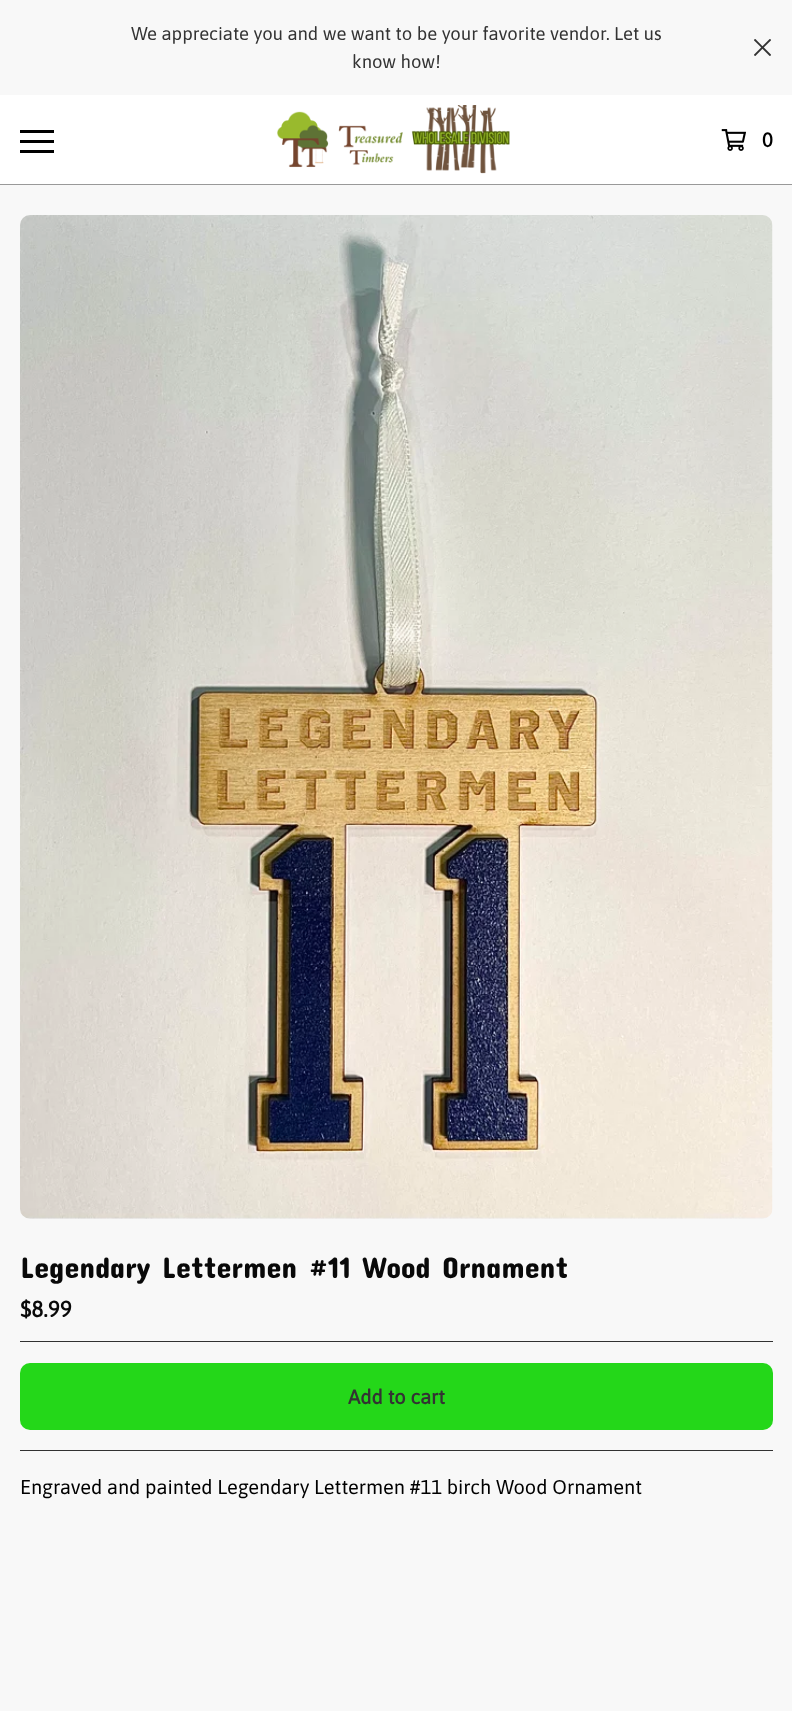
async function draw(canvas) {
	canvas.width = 792;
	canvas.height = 1711;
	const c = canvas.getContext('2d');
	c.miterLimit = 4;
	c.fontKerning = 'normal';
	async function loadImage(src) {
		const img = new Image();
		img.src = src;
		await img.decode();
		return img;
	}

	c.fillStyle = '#f8f8f8';
	c.fillRect(0, 0, 792, 1711);
	c.font = '18.5px Asap';
	c.fillStyle = '#333';
	c.fillText('We appreciate you and we want to be your favorite vendor. Let us', 131, 40);
	c.fillText('know how!', 352, 68);
	c.drawImage(await loadImage('img1.png'), 754, 39, 17, 17);
	for (const [x, y, w, h, color] of [
		[0, 95, 792, 89, '#fff'],
		[0, 184, 792, 1, '#999'],
		[20, 140, 34, 3, '#000'],
		[20, 130, 34, 3, '#000'],
		[20, 150, 34, 3, '#000'],
	]) {
		c.fillStyle = color;
		c.fillRect(x, y, w, h);
	}
	c.drawImage(await loadImage('img2.png'), 277, 105, 233, 69);
	c.drawImage(await loadImage('img3.png'), 721, 129, 25, 22);
	c.font = 'bold 20px Asap';
	c.fillText('0', 762, 147);
	c.drawImage(await loadImage('img4.png'), 20, 215, 753, 1004);
	c.font = '30px Concert One';
	c.fillStyle = '#090909';
	c.fillText('Legendary Lettermen #11 Wood Ornament', 20, 1278);
	c.font = 'bold 22.5px Asap';
	c.fillText('$8.99', 20, 1317);
	c.fillStyle = '#323232';
	c.fillRect(20, 1341, 753, 1);
	c.fillRect(20, 1450, 753, 1);
	c.fillStyle = '#24d719';
	c.beginPath();
	c.roundRect(20, 1363, 753, 67, 10);
	c.fill();
	c.font = 'bold 20px Asap';
	c.fillStyle = '#333';
	c.fillText('Add to cart', 348, 1404);
	c.font = '20px Asap';
	c.fillStyle = '#000';
	c.fillText('Engraved and painted Legendary Lettermen #11 birch Wood Ornament', 20, 1494);
}

draw(document.querySelector('canvas'));
